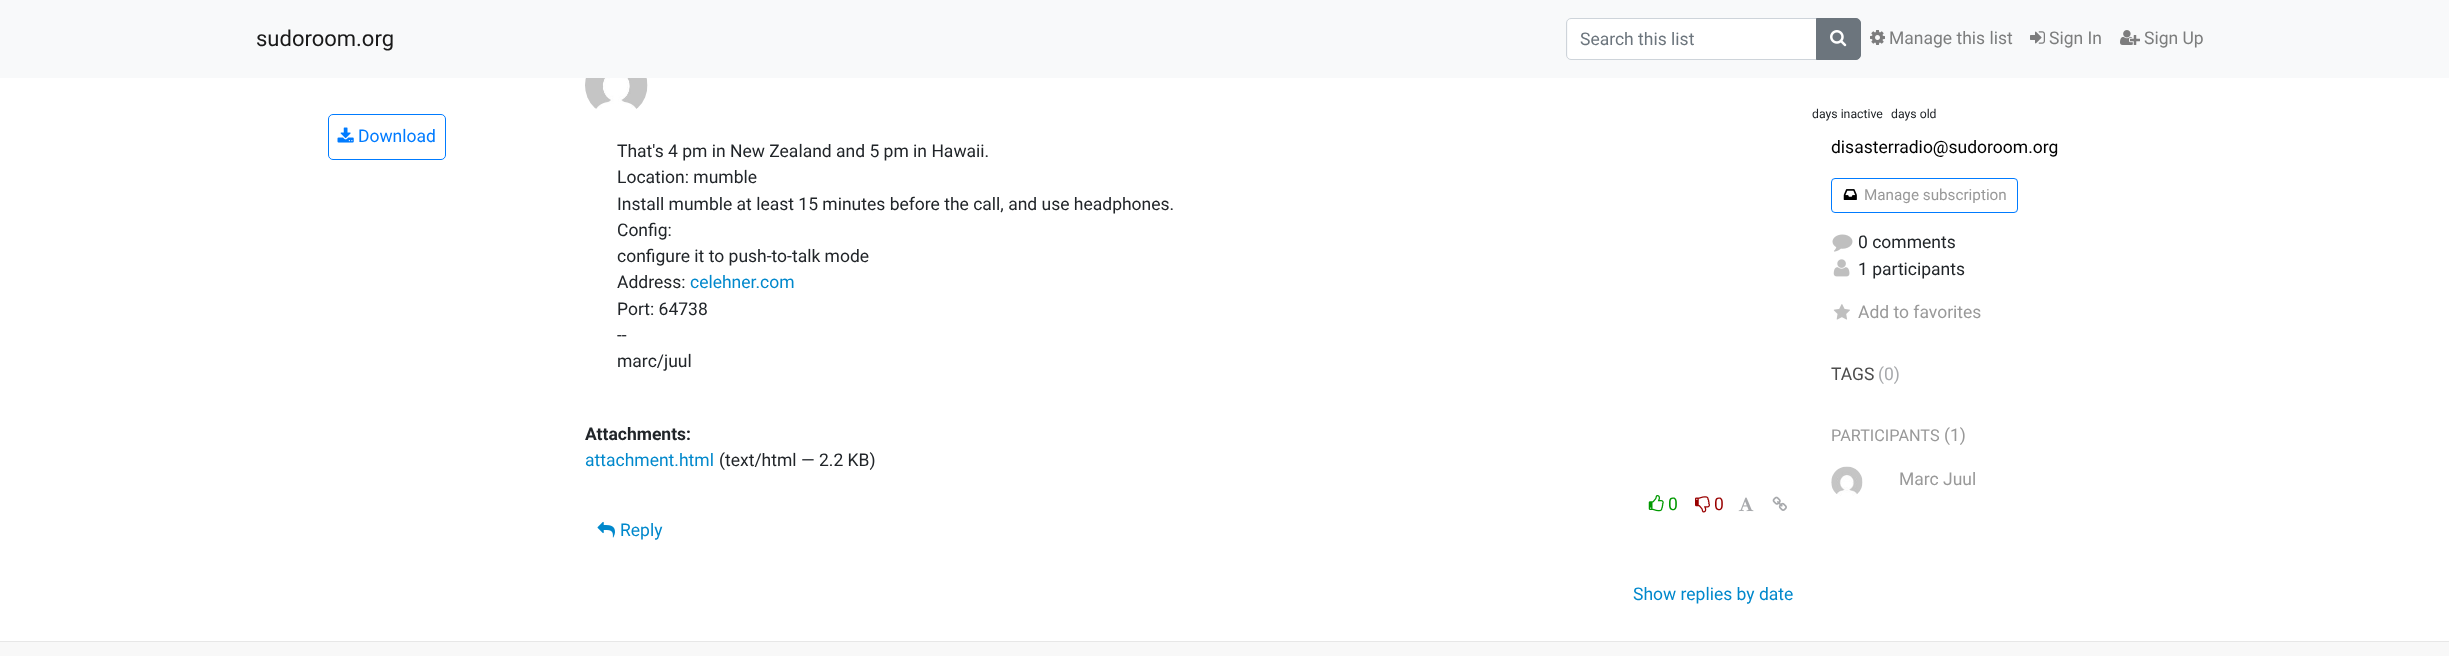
async function draw(canvas) {
	canvas.width = 2449;
	canvas.height = 656;
	const c = canvas.getContext('2d');
	c.miterLimit = 4;
	c.fontKerning = 'normal';
	async function loadImage(src) {
		const img = new Image();
		img.src = src;
		await img.decode();
		return img;
	}

	c.fillStyle = '#fff';
	c.fillRect(0, 0, 2449, 656);
	c.fillStyle = '#f8f9fa';
	c.fillRect(0, 0, 2449, 78);
	c.font = '22px Roboto';
	c.fillStyle = '#191919';
	c.fillText('sudoroom.org', 256, 46);
	c.fillStyle = '#fff';
	c.beginPath();
	c.roundRect(1568, 19, 248, 40, [3, 0, 0, 3]);
	c.fill();
	c.beginPath();
	c.roundRect(1566.5, 18.5, 251, 41, [4.5, 0, 0, 4.5]);
	c.strokeStyle = '#ced4da';
	c.stroke();
	c.font = '17.5px Roboto';
	c.fillStyle = '#6c757d';
	c.fillText('Search this list', 1580, 45);
	c.beginPath();
	c.roundRect(1816.5, 18.5, 44, 41, [0, 4.5, 4.5, 0]);
	c.fill();
	c.strokeStyle = '#6c757d';
	c.stroke();
	c.drawImage(await loadImage('img1.png'), 1830, 30, 17, 17);
	c.drawImage(await loadImage('img2.png'), 1870, 30, 15, 15);
	c.fillStyle = '#7c7d7d';
	c.fillText('Manage this list', 1889, 44);
	c.drawImage(await loadImage('img3.png'), 2030, 31, 15, 13);
	c.fillText('Sign In', 2049, 44);
	c.drawImage(await loadImage('img4.png'), 2120, 30, 20, 15);
	c.fillText('Sign Up', 2144, 44);
	c.beginPath();
	c.roundRect(328.5, 114.5, 117, 45, 4.5);
	c.strokeStyle = '#007bff';
	c.stroke();
	c.drawImage(await loadImage('img5.png'), 337, 127, 17, 16);
	c.fillStyle = '#007bff';
	c.fillText('Download', 358, 142);
	c.drawImage(await loadImage('img6.png'), 585, 78, 63, 31);
	c.fillStyle = '#212529';
	for (const [text, x, y] of [
		['That\'s 4 pm in New Zealand and 5 pm in Hawaii.', 617, 157],
		['Location: mumble', 617, 183],
		['Install mumble at least 15 minutes before the call, and use headphones.', 617, 210],
		['Config:', 617, 236],
		['configure it to push-to-talk mode', 617, 262],
		['Address:', 617, 288],
	]) {
		c.fillText(text, x, y);
	}
	c.fillStyle = '#08c';
	c.fillText('celehner.com', 690, 288);
	c.fillStyle = '#212529';
	for (const [text, x, y] of [
		['Port: 64738', 617, 315],
		['--', 617, 341],
		['marc/juul', 617, 367],
	]) {
		c.fillText(text, x, y);
	}
	c.font = 'bold 17.5px Roboto';
	c.fillText('Attachments:', 585, 440);
	c.font = '17.5px Roboto';
	c.fillStyle = '#08c';
	c.fillText('attachment.html', 585, 466);
	c.fillStyle = '#212529';
	c.fillText('(text/html — 2.2 KB)', 719, 466);
	c.drawImage(await loadImage('img7.png'), 1648, 495, 16, 17);
	c.fillStyle = '#090';
	c.fillText('0', 1668, 510);
	c.drawImage(await loadImage('img8.png'), 1695, 496, 15, 17);
	c.fillStyle = '#900';
	c.fillText('0', 1714, 510);
	c.drawImage(await loadImage('img9.png'), 1738, 497, 16, 15);
	c.drawImage(await loadImage('img10.png'), 1772, 496, 15, 15);
	c.drawImage(await loadImage('img11.png'), 597, 521, 18, 17);
	c.fillStyle = '#08c';
	c.fillText('Reply', 620, 536);
	c.fillText('Show replies by date', 1633, 600);
	c.font = '12.25px Roboto';
	c.fillStyle = '#212529';
	c.fillText('days inactive', 1812, 118);
	c.fillText('days old', 1891, 118);
	c.font = '17.5px Roboto';
	c.fillStyle = '#000';
	c.fillText('disasterradio@sudoroom.org', 1831, 153);
	c.beginPath();
	c.roundRect(1831.5, 178.5, 186, 34, 3.5);
	c.stroke();
	c.drawImage(await loadImage('img12.png'), 1843, 189, 14, 11);
	c.font = '15.25px Roboto';
	c.fillStyle = '#999';
	c.fillText('Manage subscription', 1864, 200);
	c.drawImage(await loadImage('img13.png'), 1832, 234, 21, 18);
	c.font = '17.5px Roboto';
	c.fillStyle = '#212529';
	c.fillText('0 comments', 1858, 248);
	c.drawImage(await loadImage('img14.png'), 1833, 259, 17, 18);
	c.fillText('1 participants', 1858, 275);
	c.drawImage(await loadImage('img15.png'), 1833, 304, 17, 16);
	c.fillStyle = '#999';
	c.fillText('Add to favorites', 1858, 318);
	c.fillStyle = '#4d4d4d';
	c.fillText('TAGS', 1831, 380);
	c.fillStyle = '#a7a9ac';
	c.fillText('(0)', 1878, 380);
	c.font = '16.25px Roboto';
	c.fillStyle = '#999';
	c.fillText('PARTICIPANTS', 1831, 441);
	c.font = '17.5px Roboto';
	c.fillText('(1)', 1944, 441);
	c.drawImage(await loadImage('img16.png'), 1831, 466, 32, 30);
	c.fillText('Marc Juul', 1899, 485);
	c.fillStyle = '#f8f8f8';
	c.fillRect(0, 642, 2449, 14);
	c.fillStyle = '#e7e7e7';
	c.fillRect(0, 641, 2449, 1);
}

draw(document.querySelector('canvas'));
